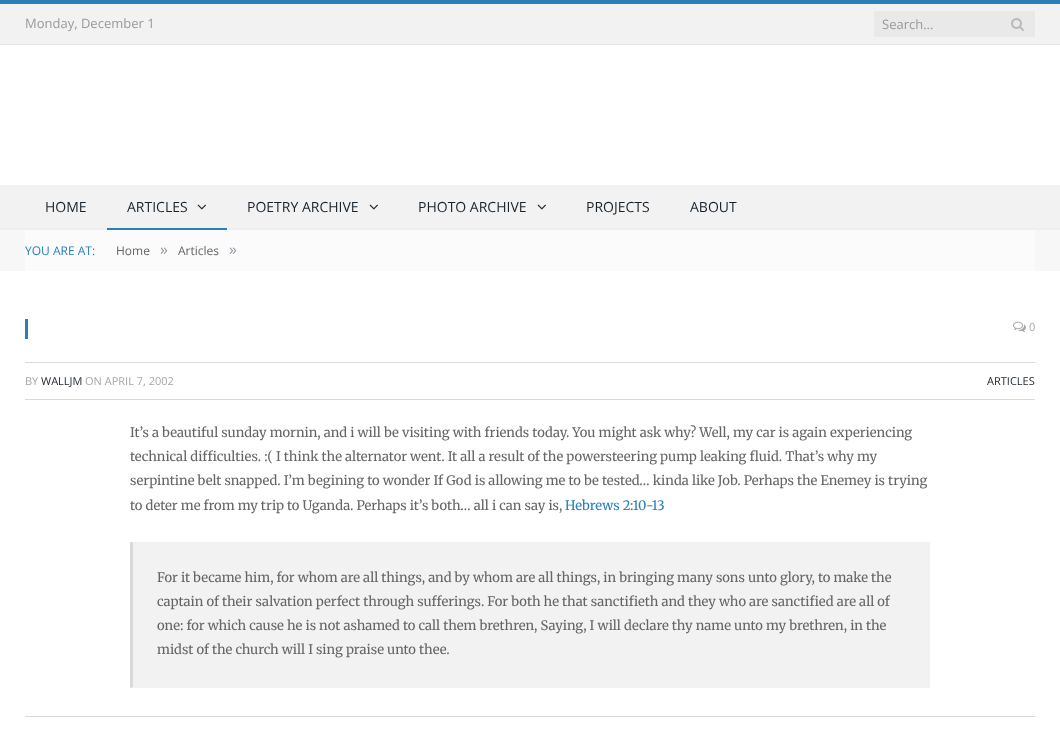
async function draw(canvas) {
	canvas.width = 1060;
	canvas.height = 735;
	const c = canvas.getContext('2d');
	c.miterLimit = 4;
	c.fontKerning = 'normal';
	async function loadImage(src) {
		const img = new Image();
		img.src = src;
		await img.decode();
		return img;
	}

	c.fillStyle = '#fff';
	c.fillRect(0, 0, 1060, 735);
	for (const [x, y, w, h, color] of [
		[0, 4, 1060, 40, '#f2f2f2'],
		[0, 0, 1060, 4, '#2980b9'],
		[0, 44, 1060, 1, '#e7e7e7'],
	]) {
		c.fillStyle = color;
		c.fillRect(x, y, w, h);
	}
	c.font = '13px Open Sans';
	c.fillStyle = '#999';
	c.fillText('Monday, December 1', 25, 28);
	c.fillStyle = '#e9e9e9';
	c.fillRect(874, 11, 161, 26);
	c.fillStyle = '#999';
	c.fillText('Search...', 882, 29);
	c.drawImage(await loadImage('img1.png'), 1011, 18, 13, 13);
	c.fillStyle = '#f2f2f2';
	c.fillRect(0, 185, 1060, 43);
	c.fillStyle = '#eee';
	c.fillRect(0, 228, 1060, 2);
	c.font = '14px Open Sans';
	c.fillStyle = '#19232d';
	c.fillText('HOME', 45, 212);
	c.fillStyle = '#2980b9';
	c.fillRect(107, 228, 120, 2);
	c.fillStyle = '#19232d';
	c.fillText('ARTICLES', 127, 212);
	c.drawImage(await loadImage('img2.png'), 197, 204, 9, 6);
	c.fillText('POETRY ARCHIVE', 247, 212);
	c.drawImage(await loadImage('img2.png'), 369, 204, 9, 6);
	c.fillText('PHOTO ARCHIVE', 418, 212);
	c.drawImage(await loadImage('img2.png'), 537, 204, 9, 6);
	c.fillText('PROJECTS', 586, 212);
	c.fillText('ABOUT', 690, 212);
	c.fillStyle = '#f7f7f7';
	c.fillRect(0, 230, 1060, 41);
	c.fillStyle = '#fbfbfb';
	c.fillRect(25, 230, 1010, 41);
	c.font = '12px Open Sans';
	c.fillStyle = '#2980b9';
	c.fillText('YOU ARE AT:', 25, 255);
	c.fillStyle = '#656565';
	c.fillText('Home', 116, 255);
	c.font = '16px Open Sans';
	c.fillStyle = '#8d97a1';
	c.fillText('»', 160, 255);
	c.font = '12px Open Sans';
	c.fillStyle = '#656565';
	c.fillText('Articles', 178, 255);
	c.font = '16px Open Sans';
	c.fillStyle = '#8d97a1';
	c.fillText('»', 229, 255);
	c.fillStyle = '#2980b9';
	c.fillRect(25, 319, 3, 20);
	c.drawImage(await loadImage('img3.png'), 1013, 321, 13, 11);
	c.font = '11px Open Sans';
	c.fillStyle = '#a6a6a6';
	c.fillText('0', 1029, 331);
	c.fillStyle = '#d9d9d9';
	c.fillRect(25, 362, 1010, 1);
	c.fillRect(25, 399, 1010, 1);
	c.fillStyle = '#a6a6a6';
	c.fillText('BY', 25, 385);
	c.fillStyle = '#19232d';
	c.fillText('WALLJM', 41, 385);
	c.fillStyle = '#a6a6a6';
	c.fillText('ON APRIL 7, 2002', 85, 385);
	c.fillStyle = '#19232d';
	c.fillText('ARTICLES', 987, 385);
	c.font = '300 13px Merriweather';
	c.fillStyle = '#656565';
	for (const [text, x, y] of [
		['It’s a beautiful sunday mornin, and i will be visiting with friends today. You might ask why? Well, my car is again experiencing', 130, 437],
		['technical difficulties. :( I think the alternator went. It all a result of the powersteering pump leaking fluid. That’s why my', 130, 461],
		['serpintine belt snapped. I’m begining to wonder If God is allowing me to be tested… kinda like Job. Perhaps the Enemey is trying', 130, 485],
		['to deter me from my trip to Uganda. Perhaps it’s both… all i can say is,', 130, 510],
	]) {
		c.fillText(text, x, y);
	}
	c.fillStyle = '#2980b9';
	c.fillText('Hebrews 2:10-13', 565, 510);
	c.fillStyle = '#f2f2f2';
	c.fillRect(130, 542, 800, 146);
	c.fillStyle = '#d9d9d9';
	c.beginPath();
	c.moveTo(130, 688);
	c.lineTo(130, 542);
	c.lineTo(133, 542);
	c.lineTo(133, 687);
	c.closePath();
	c.fill();
	c.fillStyle = '#656565';
	for (const [text, x, y] of [
		['For it became him, for whom are all things, and by whom are all things, in bringing many sons unto glory, to make the', 157, 582],
		['captain of their salvation perfect through sufferings. For both he that sanctifieth and they who are sanctified are all of', 157, 606],
		['one: for which cause he is not ashamed to call them brethren, Saying, I will declare thy name unto my brethren, in the', 157, 630],
		['midst of the church will I sing praise unto thee.', 157, 654],
	]) {
		c.fillText(text, x, y);
	}
	c.fillStyle = '#d9d9d9';
	c.fillRect(25, 716, 1010, 1);
}

draw(document.querySelector('canvas'));
